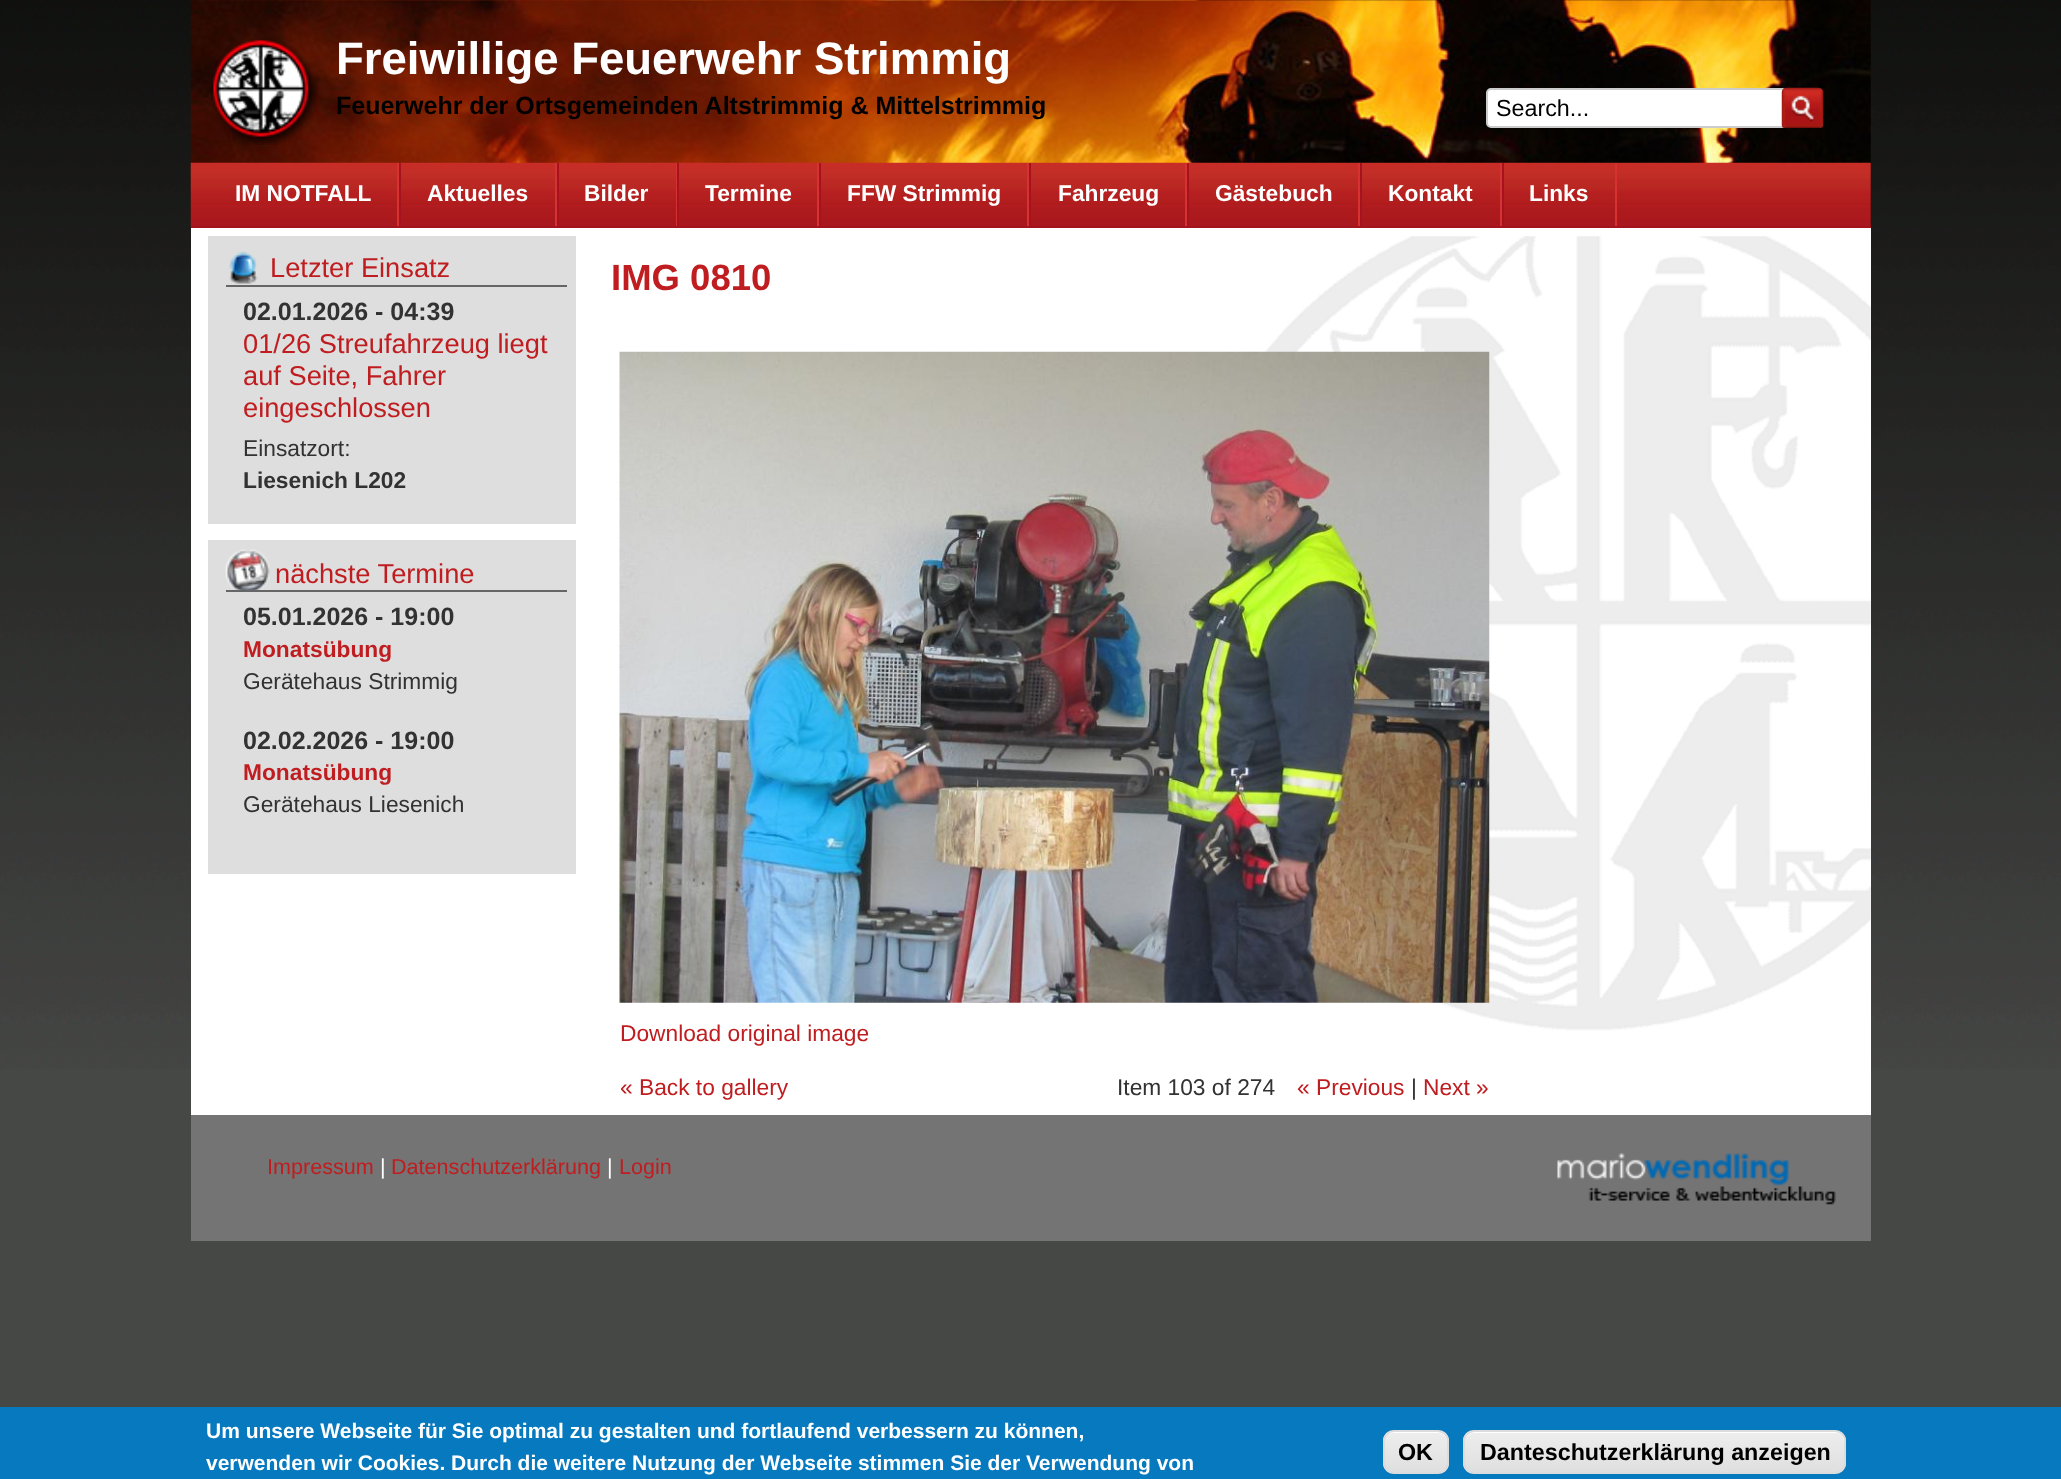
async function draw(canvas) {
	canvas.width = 2061;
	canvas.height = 1479;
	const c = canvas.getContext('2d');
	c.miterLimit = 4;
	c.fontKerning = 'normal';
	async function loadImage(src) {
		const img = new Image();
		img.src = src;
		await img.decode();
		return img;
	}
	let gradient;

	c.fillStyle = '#464845';
	c.fillRect(0, 0, 2061, 1479);
	c.drawImage(await loadImage('img1.png'), 0, 0, 2061, 1069);
	c.drawImage(await loadImage('img2.png'), 190, 0, 1681, 228);
	c.drawImage(await loadImage('img3.png'), 211, 38, 107, 107);
	c.font = 'bold 45.5px Liberation Sans';
	c.fillStyle = '#fff';
	c.fillText('Freiwillige Feuerwehr Strimmig', 336, 74);
	c.font = 'bold 25px Liberation Sans';
	c.fillStyle = '#000';
	c.fillText('Feuerwehr der Ortsgemeinden Altstrimmig & Mittelstrimmig', 336, 114);
	c.fillStyle = '#fff';
	c.beginPath();
	c.roundRect(1487, 89, 299, 38, 4);
	c.fill();
	c.strokeStyle = '#ccc';
	c.lineWidth = 2;
	c.stroke();
	c.font = '23.3px Liberation Sans';
	c.fillStyle = '#000';
	c.fillText('Search...', 1496, 116);
	c.drawImage(await loadImage('img4.png'), 1781, 87, 43, 41);
	c.drawImage(await loadImage('img5.png'), 190, 162, 1681, 66);
	c.fillStyle = '#a4141e';
	c.fillRect(191, 226, 1680, 2);
	c.fillStyle = '#d73131';
	c.fillRect(397, 163, 2, 63);
	c.font = 'bold 22.75px Liberation Sans';
	c.fillStyle = '#fff';
	c.fillText('IM NOTFALL', 235, 201);
	c.fillStyle = '#d73131';
	c.fillRect(555, 163, 2, 63);
	c.fillStyle = '#a4141e';
	c.fillRect(399, 163, 2, 63);
	c.fillStyle = '#fff';
	c.fillText('Aktuelles', 427, 201);
	c.fillStyle = '#d73131';
	c.fillRect(676, 163, 1, 63);
	c.fillStyle = '#a4141e';
	c.fillRect(557, 163, 2, 63);
	c.fillStyle = '#fff';
	c.fillText('Bilder', 584, 201);
	c.fillStyle = '#d73131';
	c.fillRect(817, 163, 2, 63);
	c.fillStyle = '#a4141e';
	c.fillRect(677, 163, 2, 63);
	c.fillStyle = '#fff';
	c.fillText('Termine', 705, 201);
	c.fillStyle = '#d73131';
	c.fillRect(1027, 163, 2, 63);
	c.fillStyle = '#a4141e';
	c.fillRect(819, 163, 2, 63);
	c.fillStyle = '#fff';
	c.fillText('FFW Strimmig', 847, 201);
	c.fillStyle = '#d73131';
	c.fillRect(1185, 163, 2, 63);
	c.fillStyle = '#a4141e';
	c.fillRect(1029, 163, 2, 63);
	c.fillStyle = '#fff';
	c.fillText('Fahrzeug', 1058, 201);
	c.fillStyle = '#d73131';
	c.fillRect(1358, 163, 2, 63);
	c.fillStyle = '#a4141e';
	c.fillRect(1187, 163, 2, 63);
	c.fillStyle = '#fff';
	c.fillText('Gästebuch', 1215, 201);
	c.fillStyle = '#d73131';
	c.fillRect(1500, 163, 2, 63);
	c.fillStyle = '#a4141e';
	c.fillRect(1360, 163, 2, 63);
	c.fillStyle = '#fff';
	c.fillText('Kontakt', 1388, 201);
	c.fillStyle = '#d73131';
	c.fillRect(1615, 163, 2, 63);
	c.fillStyle = '#a4141e';
	c.fillRect(1502, 163, 2, 63);
	c.fillStyle = '#fff';
	c.fillText('Links', 1529, 201);
	c.fillRect(191, 228, 1680, 887);
	c.drawImage(await loadImage('img6.png'), 1173, 236, 698, 795);
	c.fillStyle = '#dedede';
	c.fillRect(208, 236, 368, 288);
	c.drawImage(await loadImage('img7.png'), 229, 251, 29, 33);
	c.fillStyle = '#666';
	c.fillRect(226, 285, 341, 2);
	c.font = '27.25px Liberation Sans';
	c.fillStyle = '#bf1d20';
	c.fillText('Letzter Einsatz', 270, 277);
	c.font = 'bold 25px Liberation Sans';
	c.fillStyle = '#323232';
	c.fillText('02.01.2026 - 04:39', 243, 320);
	c.font = '27.25px Liberation Sans';
	c.fillStyle = '#bf1d20';
	for (const [text, x, y] of [
		['01/26 Streufahrzeug liegt', 243, 353],
		['auf Seite, Fahrer', 243, 385],
		['eingeschlossen', 243, 417],
	]) {
		c.fillText(text, x, y);
	}
	c.font = '22.75px Liberation Sans';
	c.fillStyle = '#323232';
	c.fillText('Einsatzort:', 243, 456);
	c.font = 'bold 22.75px Liberation Sans';
	c.fillText('Liesenich L202', 243, 488);
	c.fillStyle = '#dedede';
	c.fillRect(208, 540, 368, 334);
	c.drawImage(await loadImage('img8.png'), 225, 549, 45, 41);
	c.fillStyle = '#666';
	c.fillRect(226, 590, 341, 2);
	c.font = '27.25px Liberation Sans';
	c.fillStyle = '#bf1d20';
	c.fillText('nächste Termine', 275, 583);
	c.font = 'bold 25px Liberation Sans';
	c.fillStyle = '#323232';
	c.fillText('05.01.2026 - 19:00', 243, 625);
	c.font = 'bold 22.75px Liberation Sans';
	c.fillStyle = '#bf1d20';
	c.fillText('Monatsübung', 243, 657);
	c.font = '22.75px Liberation Sans';
	c.fillStyle = '#323232';
	c.fillText('Gerätehaus Strimmig', 243, 689);
	c.font = 'bold 25px Liberation Sans';
	c.fillText('02.02.2026 - 19:00', 243, 749);
	c.font = 'bold 22.75px Liberation Sans';
	c.fillStyle = '#bf1d20';
	c.fillText('Monatsübung', 243, 780);
	c.font = '22.75px Liberation Sans';
	c.fillStyle = '#323232';
	c.fillText('Gerätehaus Liesenich', 243, 812);
	c.font = 'bold 36.5px Liberation Sans';
	c.fillStyle = '#bf1d20';
	c.fillText('IMG 0810', 611, 290);
	c.drawImage(await loadImage('img9.png'), 619, 351, 871, 652);
	c.font = '22.75px Liberation Sans';
	c.fillText('Download original image', 620, 1041);
	c.fillText('« Back to gallery', 620, 1095);
	c.fillStyle = '#323232';
	c.fillText('Item 103 of 274', 1117, 1095);
	c.fillStyle = '#bf1d20';
	c.fillText('« Previous', 1297, 1095);
	c.fillStyle = '#323232';
	c.fillText('|', 1411, 1095);
	c.fillStyle = '#bf1d20';
	c.fillText('Next »', 1423, 1095);
	c.fillStyle = '#747474';
	c.fillRect(191, 1115, 1680, 126);
	c.font = '21.6px Liberation Sans';
	c.fillStyle = '#bf1d20';
	c.fillText('Impressum', 267, 1174);
	c.fillStyle = '#fff';
	c.fillText('|', 380, 1174);
	c.fillStyle = '#bf1d20';
	c.fillText('Datenschutzerklärung', 391, 1174);
	c.fillStyle = '#fff';
	c.fillText('|', 607, 1174);
	c.fillStyle = '#bf1d20';
	c.fillText('Login', 619, 1174);
	c.drawImage(await loadImage('img10.png'), 1557, 1153, 279, 52);
	c.fillStyle = '#0779bf';
	c.fillRect(0, 1407, 2061, 72);
	c.font = 'bold 21px Liberation Sans';
	c.fillStyle = '#fff';
	c.fillText('Um unsere Webseite für Sie optimal zu gestalten und fortlaufend verbessern zu können,', 206, 1438);
	c.fillText('verwenden wir Cookies. Durch die weitere Nutzung der Webseite stimmen Sie der Verwendung von', 206, 1470);
	c.save();
	c.beginPath();
	c.roundRect(1383, 1430, 66, 44, 11);
	c.clip();
	gradient = c.createLinearGradient(1416, 1432, 1416, 1472);
	gradient.addColorStop(0.05, '#ededed');
	gradient.addColorStop(1, '#dfdfdf');
	c.fillStyle = gradient;
	c.fillRect(1383, 1432, 66, 40);
	c.restore();
	c.beginPath();
	c.moveTo(1393, 1433);
	c.lineTo(1438, 1433);
	c.bezierCurveTo(1443, 1433, 1447, 1437, 1447, 1442);
	c.bezierCurveTo(1447, 1431, 1439, 1432, 1430, 1432);
	c.lineTo(1400, 1432);
	c.bezierCurveTo(1392, 1432, 1384, 1431, 1384, 1442);
	c.bezierCurveTo(1384, 1437, 1388, 1433, 1393, 1433);
	c.closePath();
	c.fill();
	c.beginPath();
	c.roundRect(1384, 1431, 64, 42, 10);
	c.strokeStyle = '#dcdcdc';
	c.stroke();
	c.font = 'bold 23.3px Liberation Sans';
	c.fillStyle = '#000';
	c.fillText('OK', 1398, 1460);
	c.save();
	c.beginPath();
	c.roundRect(1463, 1430, 383, 44, 11);
	c.clip();
	gradient = c.createLinearGradient(1655, 1432, 1655, 1472);
	gradient.addColorStop(0.05, '#ededed');
	gradient.addColorStop(1, '#dfdfdf');
	c.fillStyle = gradient;
	c.fillRect(1463, 1432, 383, 40);
	c.restore();
	c.fillStyle = '#fff';
	c.beginPath();
	c.moveTo(1474, 1433);
	c.lineTo(1836, 1433);
	c.bezierCurveTo(1845, 1433, 1844, 1444, 1844, 1450);
	c.lineTo(1844, 1468);
	c.bezierCurveTo(1845, 1466, 1845, 1465, 1845, 1463);
	c.lineTo(1845, 1441);
	c.bezierCurveTo(1845, 1436, 1841, 1432, 1836, 1432);
	c.lineTo(1474, 1432);
	c.bezierCurveTo(1469, 1432, 1465, 1436, 1465, 1441);
	c.lineTo(1465, 1442);
	c.bezierCurveTo(1465, 1437, 1469, 1433, 1474, 1433);
	c.closePath();
	c.fill();
	c.beginPath();
	c.roundRect(1464, 1431, 381, 42, 10);
	c.stroke();
	c.fillStyle = '#000';
	c.fillText('Danteschutzerklärung anzeigen', 1480, 1460);
}

draw(document.querySelector('canvas'));
